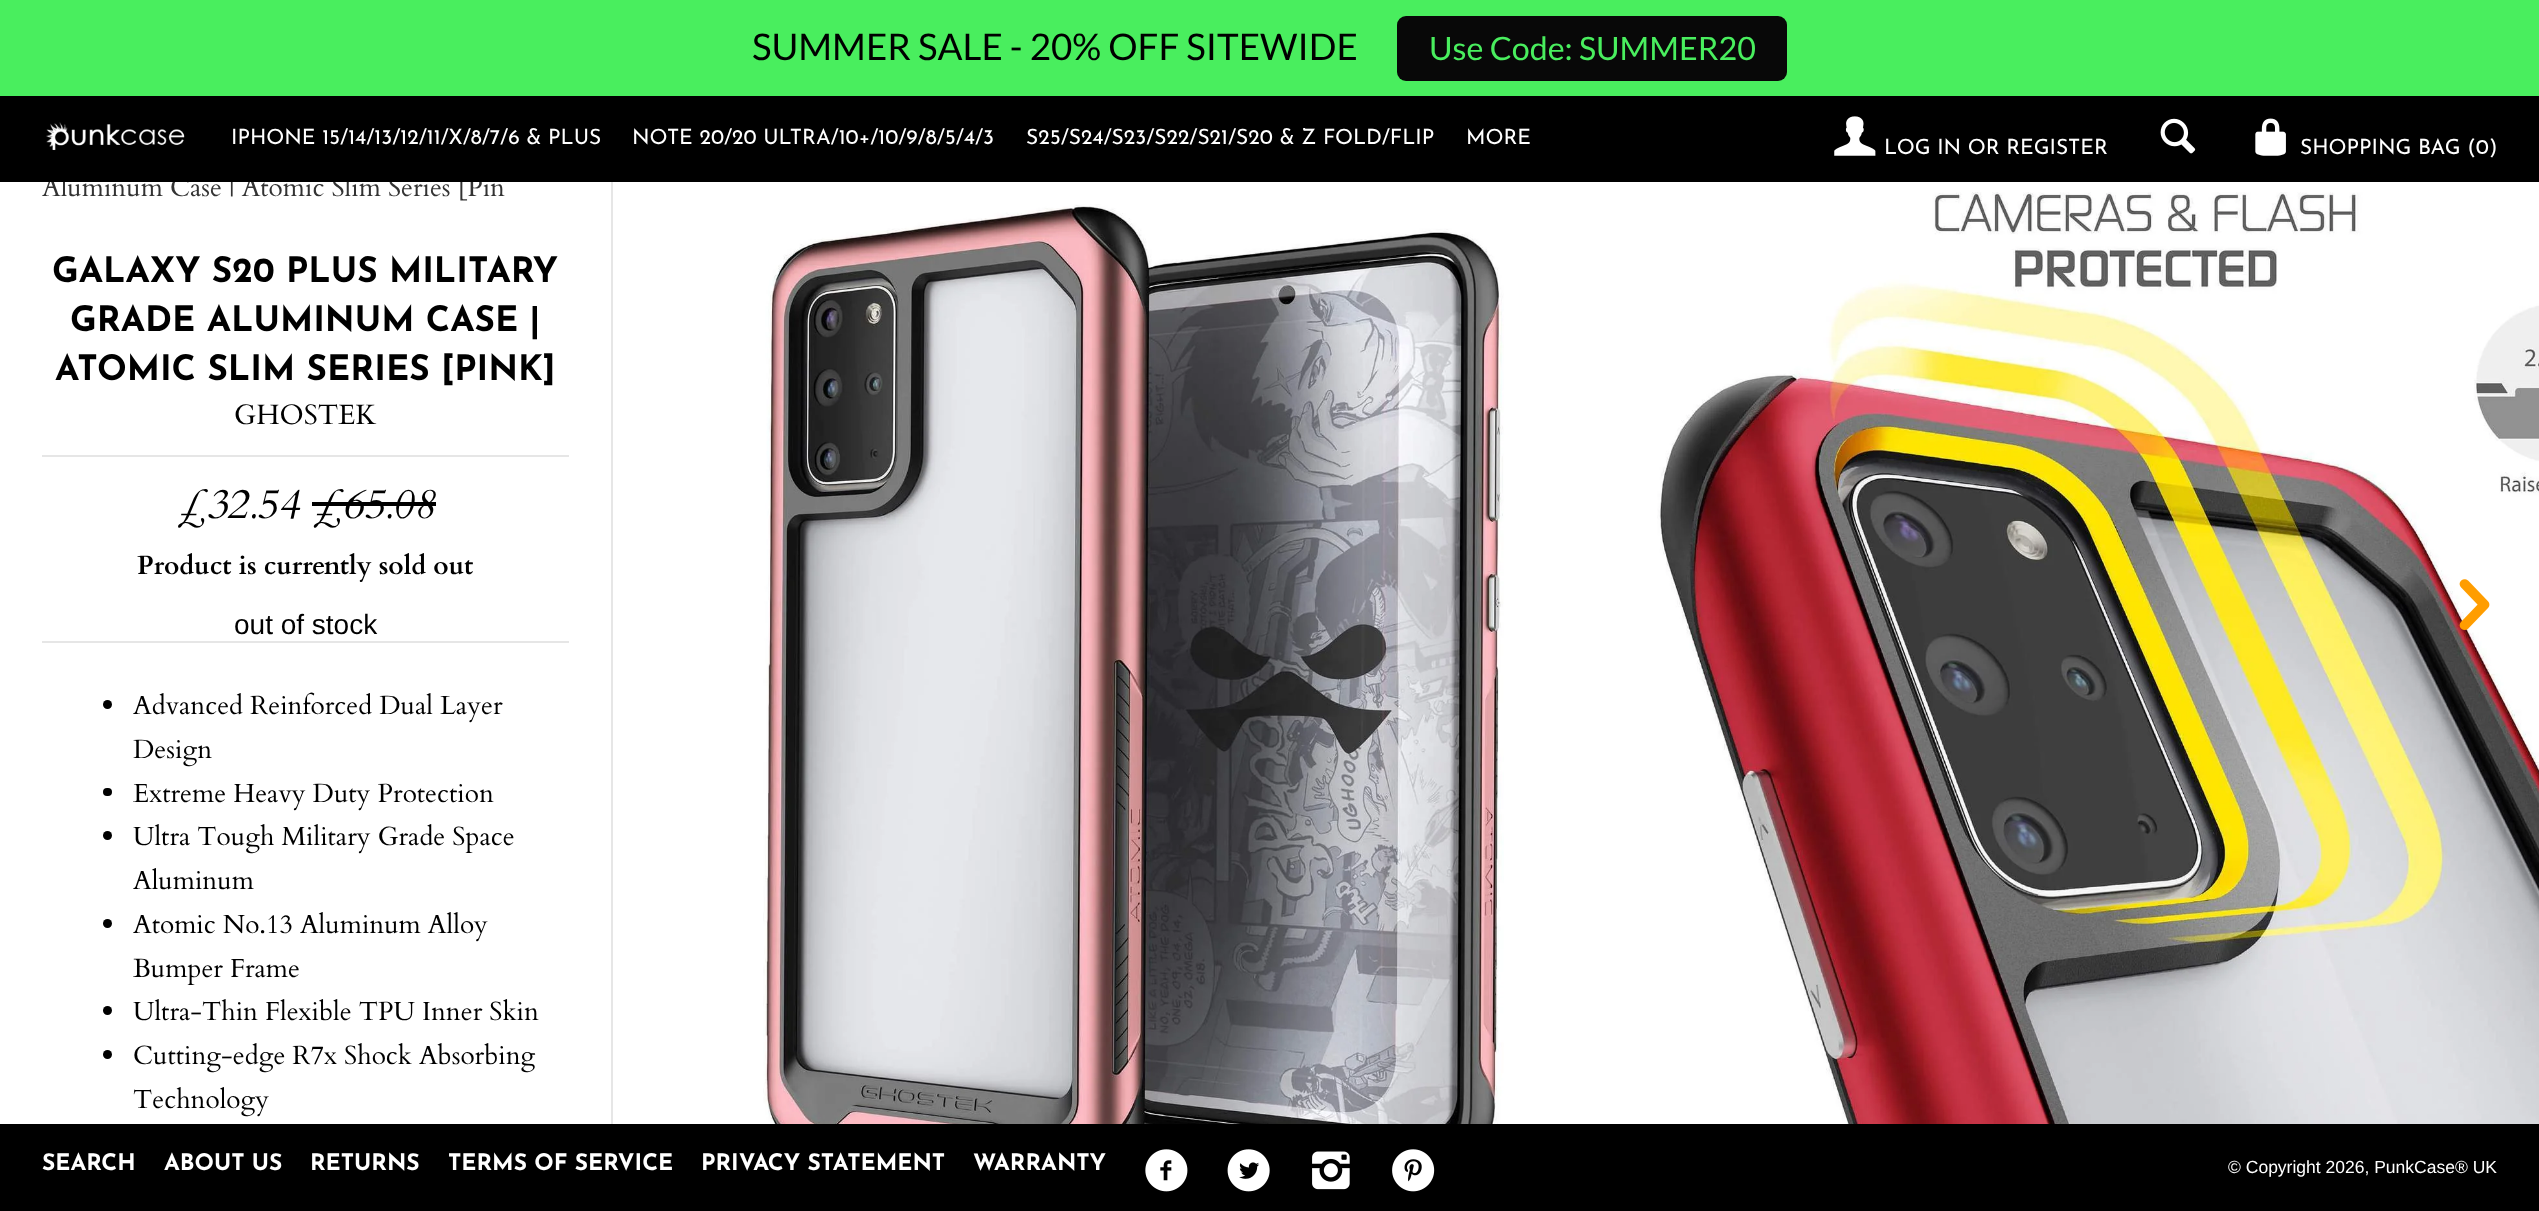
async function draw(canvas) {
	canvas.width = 2539;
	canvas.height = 1211;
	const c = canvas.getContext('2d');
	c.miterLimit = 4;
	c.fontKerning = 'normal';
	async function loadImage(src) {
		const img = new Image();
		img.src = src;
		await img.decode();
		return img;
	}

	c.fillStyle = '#fff';
	c.fillRect(0, 0, 2539, 1211);
	c.fillStyle = '#49ee5e';
	c.fillRect(0, 0, 2539, 96);
	c.font = '36.75px Lato';
	c.fillStyle = '#000';
	c.fillText('SUMMER SALE - 20% OFF SITEWIDE', 752, 60);
	c.fillStyle = '#080808';
	c.beginPath();
	c.roundRect(1397, 16, 390, 65, 9);
	c.fill();
	c.font = '32.25px Lato';
	c.fillStyle = '#49ee5e';
	c.fillText('Use Code: SUMMER20', 1429, 60);
	c.font = '26.25px Cardo';
	c.fillStyle = '#333';
	c.fillText('Aluminum Case | Atomic Slim Series [Pin', 42, 196);
	c.fillStyle = '#000';
	c.fillRect(0, 96, 2539, 86);
	c.drawImage(await loadImage('img1.png'), 46, 122, 139, 29);
	c.font = '21px Josefin Sans';
	c.fillStyle = '#fff';
	for (const [text, x, y] of [
		['IPHONE 15/14/13/12/11/X/8/7/6 & PLUS', 231, 144],
		['NOTE 20/20 ULTRA/10+/10/9/8/5/4/3', 632, 144],
		['S25/S24/S23/S22/S21/S20 & Z FOLD/FLIP', 1026, 144],
		['MORE', 1466, 144],
	]) {
		c.fillText(text, x, y);
	}
	c.drawImage(await loadImage('img2.png'), 1834, 116, 42, 40);
	c.fillText('LOG IN OR REGISTER', 1884, 154);
	c.drawImage(await loadImage('img3.png'), 2160, 118, 36, 36);
	c.drawImage(await loadImage('img4.png'), 2255, 118, 31, 38);
	c.fillText('SHOPPING BAG (0', 2300, 154);
	c.fillText(')', 2489, 154);
	c.fillStyle = '#e6e6e6';
	c.fillRect(611, 182, 2, 942);
	c.font = 'bold 35px Josefin Sans';
	c.fillStyle = '#000';
	for (const [text, x, y] of [
		['GALAXY S20 PLUS MILITARY', 52, 282],
		['GRADE ALUMINUM CASE |', 70, 331],
		['ATOMIC SLIM SERIES [PINK]', 55, 380],
	]) {
		c.fillText(text, x, y);
	}
	c.fillStyle = '#e6e6e6';
	c.fillRect(42, 455, 527, 2);
	c.font = '28px Cardo';
	c.fillStyle = '#000';
	c.fillText('GHOSTEK', 234, 424);
	c.font = 'italic 42px Cardo';
	c.fillText('£32.54 £65.08', 176, 518);
	c.fillRect(312, 502, 124, 4);
	c.font = 'bold 26.25px Cardo';
	c.fillText('Product is currently sold out', 137, 574);
	c.font = '28px Liberation Sans';
	c.fillText('out of stock', 234, 634);
	c.fillStyle = '#e6e6e6';
	c.fillRect(42, 641, 527, 2);
	c.fillStyle = '#000';
	c.beginPath();
	c.arc(107.5, 704.5, 4.5, 0, 2 * Math.PI);
	c.fill();
	c.font = '26.25px Cardo';
	c.fillText('Advanced Reinforced Dual Layer', 133, 714);
	c.fillText('Design', 133, 758);
	c.beginPath();
	c.roundRect(103, 788, 9, 8, 4);
	c.fill();
	c.fillText('Extreme Heavy Duty Protection', 133, 802);
	c.beginPath();
	c.arc(107.5, 835.5, 4.5, 0, 2 * Math.PI);
	c.fill();
	c.fillText('Ultra Tough Military Grade Space', 133, 845);
	c.fillText('Aluminum', 133, 889);
	c.beginPath();
	c.arc(107.5, 923.5, 4.5, 0, 2 * Math.PI);
	c.fill();
	c.fillText('Atomic No.13 Aluminum Alloy', 133, 933);
	c.fillText('Bumper Frame', 133, 977);
	c.beginPath();
	c.arc(107.5, 1010.5, 4.5, 0, 2 * Math.PI);
	c.fill();
	c.fillText('Ultra-Thin Flexible TPU Inner Skin', 133, 1020);
	c.beginPath();
	c.arc(107.5, 1054.5, 4.5, 0, 2 * Math.PI);
	c.fill();
	c.fillText('Cutting-edge R7x Shock Absorbing', 133, 1064);
	c.fillText('Technology', 133, 1108);
	c.drawImage(await loadImage('img5.png'), 763, 204, 741, 920);
	c.drawImage(await loadImage('img6.png'), 1657, 192, 882, 932);
	c.drawImage(await loadImage('img7.png'), 2459, 579, 31, 51);
	c.fillRect(0, 1124, 2539, 87);
	c.font = 'bold 22.75px Josefin Sans';
	c.fillStyle = '#fff';
	for (const [text, x, y] of [
		['SEARCH', 42, 1170],
		['ABOUT US', 164, 1170],
		['RETURNS', 310, 1170],
		['TERMS OF SERVICE', 448, 1170],
		['PRIVACY STATEMENT', 701, 1170],
		['WARRANTY', 973, 1170],
	]) {
		c.fillText(text, x, y);
	}
	c.drawImage(await loadImage('img8.png'), 1145, 1149, 43, 43);
	c.drawImage(await loadImage('img9.png'), 1227, 1149, 43, 43);
	c.drawImage(await loadImage('img10.png'), 1312, 1151, 38, 39);
	c.drawImage(await loadImage('img11.png'), 1392, 1149, 43, 43);
	c.font = '17.5px Liberation Sans';
	c.fillText('© Copyright 2026, PunkCase® UK', 2228, 1173);
}

draw(document.querySelector('canvas'));
